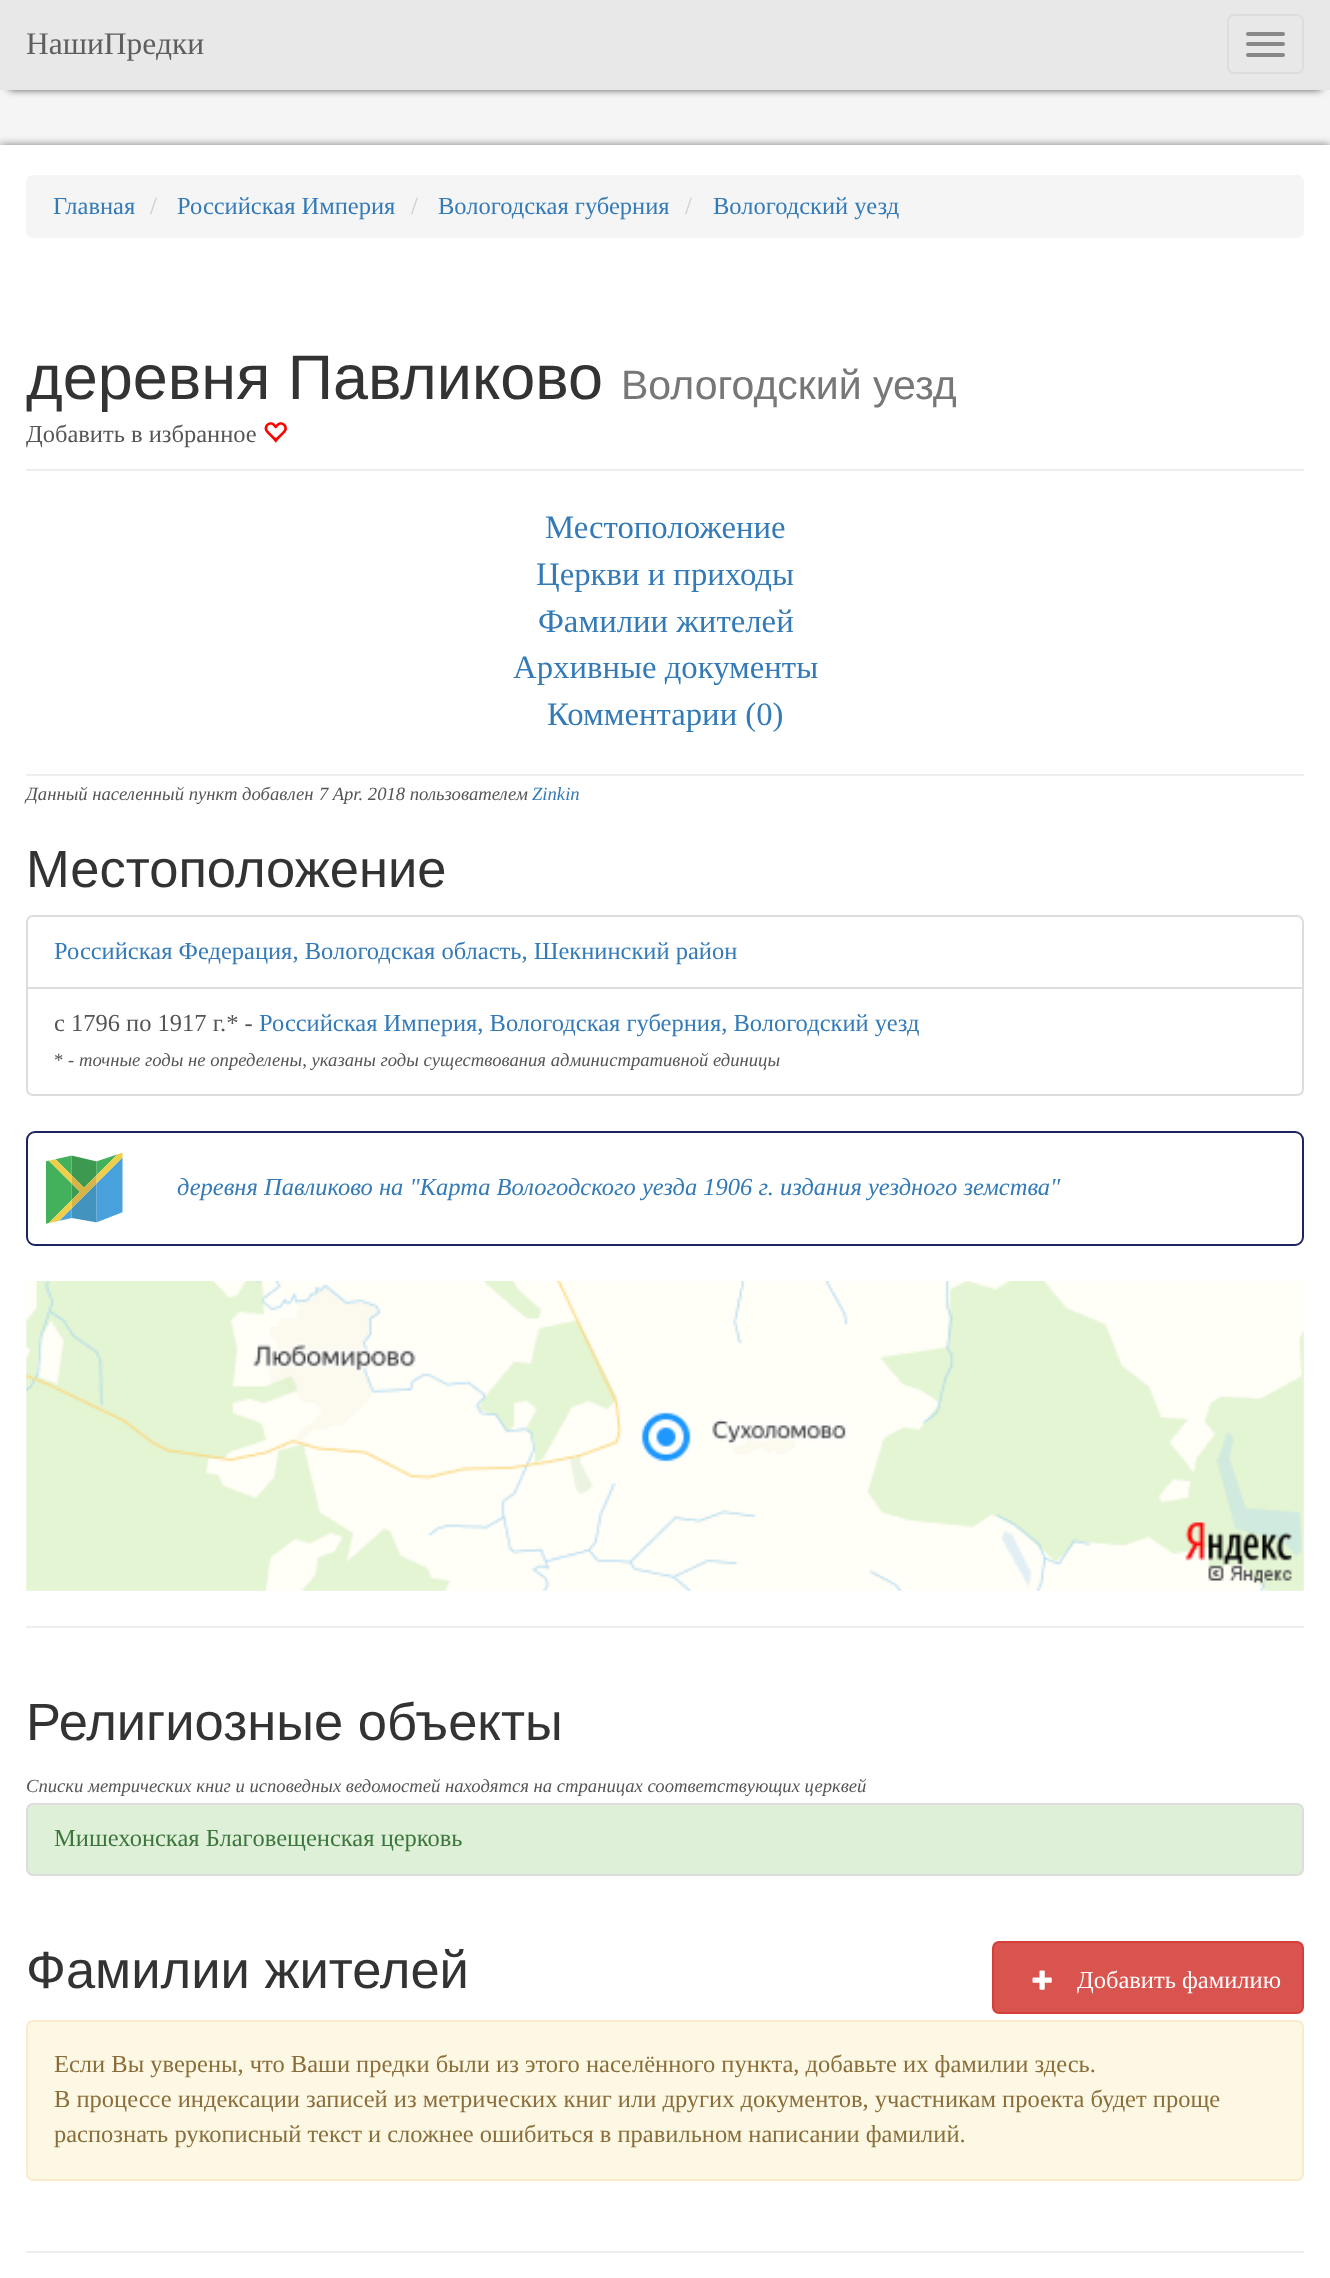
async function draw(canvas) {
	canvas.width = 1330;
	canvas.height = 2278;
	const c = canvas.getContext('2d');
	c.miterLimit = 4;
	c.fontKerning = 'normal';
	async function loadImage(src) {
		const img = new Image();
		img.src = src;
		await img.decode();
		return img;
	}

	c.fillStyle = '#f5f5f5';
	c.fillRect(0, 0, 1330, 2278);
	c.fillStyle = '#333';
	c.filter = 'blur(4.5px)';
	c.beginPath();
	c.rect(9, 18, 1312, 71);
	c.fill();
	c.filter = 'none';
	c.fillStyle = '#e8e8e8';
	c.fillRect(0, 0, 1330, 88);
	c.fillStyle = '#e7e7e7';
	c.fillRect(0, 88, 1330, 2);
	c.font = '31.5px Liberation Serif';
	c.fillStyle = '#5e5e5e';
	c.fillText('НашиПредки', 26, 54);
	c.beginPath();
	c.roundRect(1228, 15, 75, 58, 6);
	c.strokeStyle = '#ddd';
	c.lineWidth = 2;
	c.stroke();
	c.fillStyle = '#888';
	c.beginPath();
	c.roundRect(1246, 32, 39, 4, 2);
	c.fill();
	c.beginPath();
	c.roundRect(1246, 42, 39, 4, 2);
	c.fill();
	c.beginPath();
	c.roundRect(1246, 53, 39, 4, 2);
	c.fill();
	c.fillStyle = '#00000080';
	c.filter = 'blur(4.5px)';
	c.beginPath();
	c.rect(0, 145, 1330, 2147);
	c.fill();
	c.filter = 'none';
	c.fillStyle = '#fff';
	c.fillRect(0, 145, 1330, 2133);
	c.fillStyle = '#f5f5f5';
	c.beginPath();
	c.roundRect(26, 175, 1278, 63, 7);
	c.fill();
	c.font = '24.5px Liberation Serif';
	c.fillStyle = '#337ab7';
	c.fillText('Главная', 53, 214);
	c.fillStyle = '#ccc';
	c.fillText('/', 150, 214);
	c.fillStyle = '#337ab7';
	c.fillText('Российская Империя', 177, 214);
	c.fillStyle = '#ccc';
	c.fillText('/', 411, 214);
	c.fillStyle = '#337ab7';
	c.fillText('Вологодская губерния', 438, 214);
	c.fillStyle = '#ccc';
	c.fillText('/', 685, 214);
	c.fillStyle = '#337ab7';
	c.fillText('Вологодский уезд', 713, 214);
	c.fillStyle = '#eee';
	c.fillRect(26, 469, 1278, 2);
	c.font = '63px Liberation Sans';
	c.fillStyle = '#333';
	c.fillText('деревня Павликово', 26, 399);
	c.font = '41px Liberation Sans';
	c.fillStyle = '#777';
	c.fillText('Вологодский уезд', 621, 399);
	c.font = '24.5px Liberation Serif';
	c.fillStyle = '#555';
	c.fillText('Добавить в избранное', 26, 442);
	c.drawImage(await loadImage('img1.png'), 264, 422, 23, 21);
	c.font = '32.75px Liberation Serif';
	c.fillStyle = '#337ab7';
	for (const [text, x, y] of [
		['Местоположение', 545, 538],
		['Церкви и приходы', 536, 585],
		['Фамилии жителей', 538, 632],
		['Архивные документы', 513, 678],
		['Комментарии (0)', 547, 725],
	]) {
		c.fillText(text, x, y);
	}
	c.fillStyle = '#eee';
	c.fillRect(26, 774, 1278, 2);
	c.font = 'italic 18.65px Liberation Serif';
	c.fillStyle = '#555';
	c.fillText('Данный населенный пункт добавлен', 26, 800);
	c.fillText('7 Apr. 2018 пользователем', 319, 800);
	c.fillStyle = '#337ab7';
	c.fillText('Zinkin', 532, 800);
	c.font = '52.5px Liberation Sans';
	c.fillStyle = '#333';
	c.fillText('Местоположение', 26, 887);
	c.beginPath();
	c.roundRect(27, 916, 1276, 72, [6, 6, 0, 0]);
	c.stroke();
	c.font = '24.5px Liberation Serif';
	c.fillStyle = '#337ab7';
	c.fillText('Российская Федерация, Вологодская область, Шекнинский район', 54, 959);
	c.fillStyle = '#fff';
	c.beginPath();
	c.roundRect(27, 988, 1276, 107, [0, 0, 6, 6]);
	c.fill();
	c.stroke();
	c.fillStyle = '#555';
	c.fillText('с 1796 по 1917 г.* -', 54, 1031);
	c.fillStyle = '#337ab7';
	c.fillText('Российская Империя, Вологодская губерния, Вологодский уезд', 259, 1031);
	c.font = '18.65px Liberation Serif';
	c.fillStyle = '#555';
	c.fillText('* -', 54, 1066);
	c.font = 'italic 18.65px Liberation Serif';
	c.fillText('точные годы не определены, указаны годы существования административной единицы', 79, 1066);
	c.beginPath();
	c.roundRect(27, 1132, 1276, 113, 8);
	c.strokeStyle = '#1e2460';
	c.stroke();
	c.drawImage(await loadImage('img2.png'), 46, 1152, 77, 72);
	c.font = 'italic 24.5px Liberation Serif';
	c.fillStyle = '#337ab7';
	c.fillText('деревня Павликово на "Карта Вологодского уезда 1906 г. издания уездного земства"', 177, 1195);
	c.drawImage(await loadImage('img3.png'), 26, 1281, 1278, 310);
	c.fillStyle = '#eee';
	c.fillRect(26, 1626, 1278, 2);
	c.font = '52.5px Liberation Sans';
	c.fillStyle = '#333';
	c.fillText('Религиозные объекты', 26, 1740);
	c.font = 'italic 18.65px Liberation Serif';
	c.fillStyle = '#555';
	c.fillText('Списки метрических книг и исповедных ведомостей находятся на страницах соответствующих церквей', 26, 1792);
	c.fillStyle = '#dff0d8';
	c.beginPath();
	c.roundRect(27, 1804, 1276, 71, 6);
	c.fill();
	c.strokeStyle = '#ddd';
	c.stroke();
	c.font = '24.5px Liberation Serif';
	c.fillStyle = '#3c763d';
	c.fillText('Мишехонская Благoвещенская церковь', 54, 1846);
	c.font = '52.5px Liberation Sans';
	c.fillStyle = '#333';
	c.fillText('Фамилии жителей', 26, 1988);
	c.fillStyle = '#d9534f';
	c.beginPath();
	c.roundRect(993, 1942, 310, 71, 6);
	c.fill();
	c.strokeStyle = '#d43f3a';
	c.stroke();
	c.drawImage(await loadImage('img4.png'), 1032, 1970, 20, 20);
	c.font = '24.5px Liberation Serif';
	c.fillStyle = '#fff';
	c.fillText('Добавить фамилию', 1077, 1988);
	c.fillStyle = '#fcf8e3';
	c.beginPath();
	c.roundRect(27, 2021, 1276, 159, 6);
	c.fill();
	c.strokeStyle = '#faebcc';
	c.stroke();
	c.fillStyle = '#8a6d3b';
	for (const [text, x, y] of [
		['Если Вы уверены, что Ваши предки были из этого населённого пункта, добавьте их фамилии здесь.', 54, 2072],
		['В процессе индексации записей из метрических книг или других документов, участникам проекта будет проще', 54, 2107],
		['распознать рукописный текст и сложнее ошибиться в правильном написании фамилий.', 54, 2142],
	]) {
		c.fillText(text, x, y);
	}
	c.fillStyle = '#eee';
	c.fillRect(26, 2251, 1278, 2);
}

draw(document.querySelector('canvas'));
